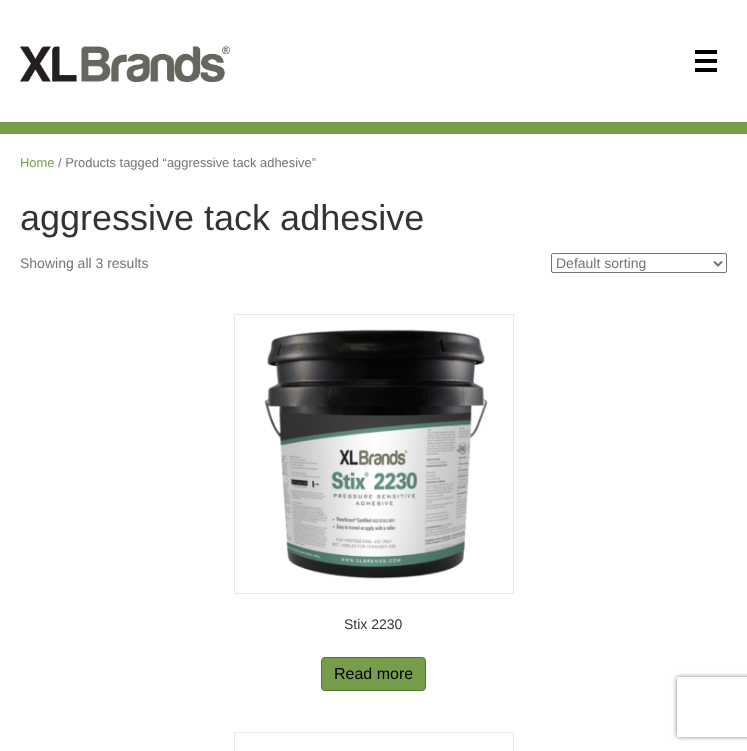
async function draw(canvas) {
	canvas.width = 747;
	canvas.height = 751;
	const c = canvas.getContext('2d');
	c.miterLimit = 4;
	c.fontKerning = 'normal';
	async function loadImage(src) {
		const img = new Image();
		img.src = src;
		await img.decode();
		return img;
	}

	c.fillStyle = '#fff';
	c.fillRect(0, 0, 747, 751);
	c.fillStyle = '#789d4a';
	c.fillRect(0, 122, 747, 12);
	c.drawImage(await loadImage('img1.png'), 20, 46, 210, 36);
	for (const [x, y, w, h, color] of [
		[695, 50, 22, 4, '#000'],
		[695, 59, 22, 4, '#000'],
		[695, 68, 22, 4, '#000'],
	]) {
		c.fillStyle = color;
		c.fillRect(x, y, w, h);
	}
	c.font = '12.9px Liberation Sans';
	c.fillStyle = '#789d4a';
	c.fillText('Home', 20, 167);
	c.fillStyle = '#757575';
	c.fillText('/ Products tagged “aggressive tack adhesive”', 58, 167);
	c.font = '36px Liberation Sans';
	c.fillStyle = '#333';
	c.fillText('aggressive tack adhesive', 20, 230);
	c.font = '14px Liberation Sans';
	c.fillStyle = '#757575';
	c.fillText('Showing all 3 results', 20, 268);
	c.beginPath();
	c.roundRect(551.5, 253.5, 175, 19, 1.5);
	c.strokeStyle = '#767676';
	c.stroke();
	c.beginPath();
	c.moveTo(714, 261.5);
	c.lineTo(718, 265.5);
	c.lineTo(722, 261.5);
	c.strokeStyle = '#757575';
	c.lineWidth = 2;
	c.stroke();
	c.fillText('Default sorting', 556, 268);
	c.strokeStyle = '#e6e6e6';
	c.lineWidth = 1;
	c.strokeRect(234.5, 314.5, 279, 279);
	c.drawImage(await loadImage('img2.png'), 264, 329, 224, 250);
	c.fillStyle = '#333';
	c.fillText('Stix 2230', 344, 629);
	c.fillStyle = '#789d4a';
	c.beginPath();
	c.roundRect(321.5, 657.5, 104, 33, 3.5);
	c.fill();
	c.strokeStyle = '#587336';
	c.stroke();
	c.font = '16px Liberation Sans';
	c.fillStyle = '#000';
	c.fillText('Read more', 334, 679);
	c.strokeStyle = '#e6e6e6';
	c.strokeRect(234.5, 732.5, 279, 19);
	c.save();
	c.beginPath();
	c.moveTo(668, 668);
	c.lineTo(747, 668);
	c.lineTo(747, 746);
	c.lineTo(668, 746);
	c.closePath();
	c.moveTo(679, 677);
	c.lineTo(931, 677);
	c.bezierCurveTo(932, 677, 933, 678, 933, 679);
	c.lineTo(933, 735);
	c.bezierCurveTo(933, 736, 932, 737, 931, 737);
	c.lineTo(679, 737);
	c.bezierCurveTo(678, 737, 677, 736, 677, 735);
	c.lineTo(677, 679);
	c.bezierCurveTo(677, 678, 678, 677, 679, 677);
	c.closePath();
	c.clip('evenodd');
	c.fillStyle = '#808080';
	c.filter = 'blur(2.5px)';
	c.beginPath();
	c.roundRect(677, 677, 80, 60, 2);
	c.fill();
	c.filter = 'none';
	c.restore();
}

draw(document.querySelector('canvas'));
